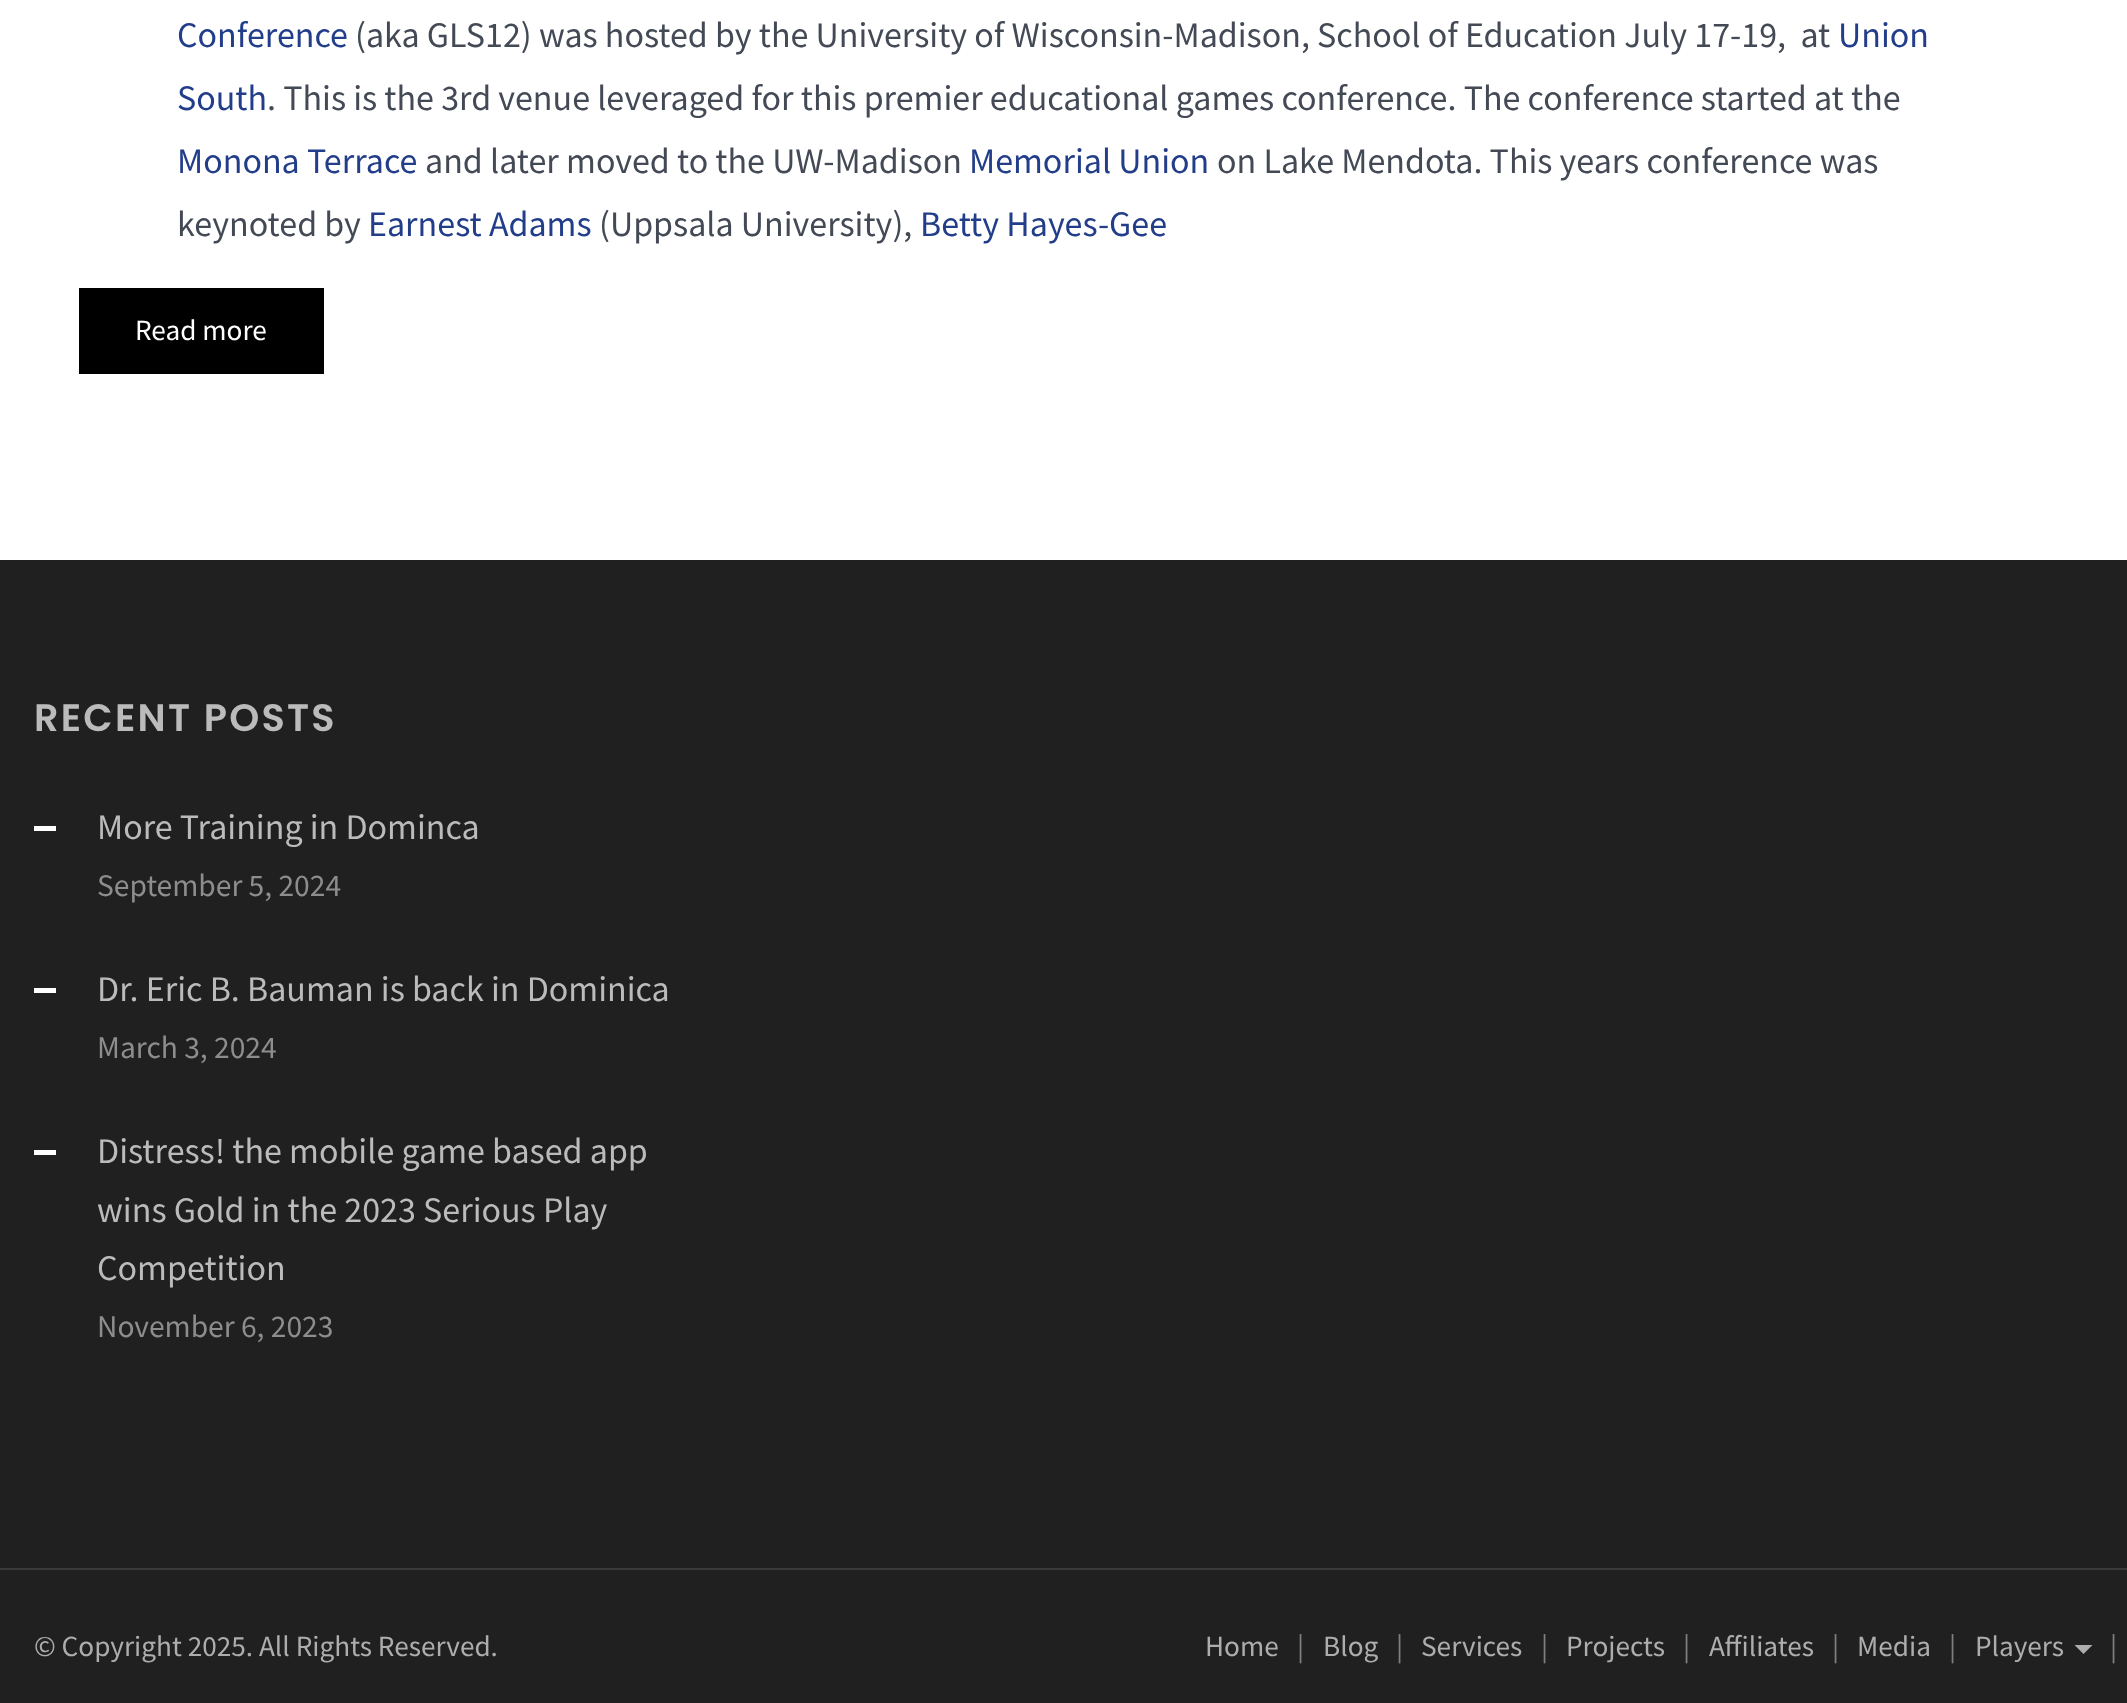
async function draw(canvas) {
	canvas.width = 2127;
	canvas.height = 1703;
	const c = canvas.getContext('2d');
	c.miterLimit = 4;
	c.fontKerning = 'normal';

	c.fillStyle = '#fff';
	c.fillRect(0, 0, 2127, 1703);
	c.font = '36px Source Sans Pro';
	c.fillStyle = '#223d89';
	c.fillText('Conference', 177, 47);
	c.fillStyle = '#434955';
	c.fillText('(aka GLS12) was hosted by the University of Wisconsin-Madison, School of Education July 17-19,  at', 355, 47);
	c.fillStyle = '#223d89';
	c.fillText('Union', 1838, 47);
	c.fillText('South', 177, 110);
	c.fillStyle = '#434955';
	c.fillText('. This is the 3rd venue leveraged for this premier educational games conference. The conference started at the', 267, 110);
	c.fillStyle = '#223d89';
	c.fillText('Monona Terrace', 177, 173);
	c.fillStyle = '#434955';
	c.fillText('and later moved to the UW-Madison', 425, 173);
	c.fillStyle = '#223d89';
	c.fillText('Memorial Union', 969, 173);
	c.fillStyle = '#434955';
	c.fillText('on Lake Mendota. This years conference was', 1217, 173);
	c.fillText('keynoted by', 177, 236);
	c.fillStyle = '#223d89';
	c.fillText('Earnest Adams', 368, 236);
	c.fillStyle = '#434955';
	c.fillText('(Uppsala University),', 599, 236);
	c.fillStyle = '#223d89';
	c.fillText('Betty Hayes-Gee', 920, 236);
	c.fillStyle = '#000';
	c.fillRect(79, 288, 245, 86);
	c.font = '29.25px Source Sans Pro';
	c.fillStyle = '#fff';
	c.fillText('Read more', 135, 340);
	c.fillStyle = '#202020';
	c.fillRect(0, 560, 2127, 1143);
	c.letterSpacing = '2.25px';
	c.font = '600 38.25px Poppins';
	c.fillStyle = '#bbb';
	c.fillText('RECENT POSTS', 34, 731);
	c.fillStyle = '#fff';
	c.fillRect(34, 826, 22, 5);
	c.letterSpacing = '0px';
	c.font = '36px Source Sans Pro';
	c.fillStyle = '#bbb';
	c.fillText('More Training in Dominca', 97, 839);
	c.font = '31.5px Source Sans Pro';
	c.fillStyle = '#8d8d8d';
	c.fillText('September 5, 2024', 97, 896);
	c.fillStyle = '#fff';
	c.fillRect(34, 988, 22, 5);
	c.font = '36px Source Sans Pro';
	c.fillStyle = '#bbb';
	c.fillText('Dr. Eric B. Bauman is back in Dominica', 97, 1001);
	c.font = '31.5px Source Sans Pro';
	c.fillStyle = '#8d8d8d';
	c.fillText('March 3, 2024', 97, 1058);
	c.fillStyle = '#fff';
	c.fillRect(34, 1150, 22, 5);
	c.font = '36px Source Sans Pro';
	c.fillStyle = '#bbb';
	for (const [text, x, y] of [
		['Distress! the mobile game based app', 97, 1163],
		['wins Gold in the 2023 Serious Play', 97, 1222],
		['Competition', 97, 1280],
	]) {
		c.fillText(text, x, y);
	}
	c.font = '31.5px Source Sans Pro';
	c.fillStyle = '#8d8d8d';
	c.fillText('November 6, 2023', 97, 1337);
	c.fillStyle = '#3b3a3a';
	c.fillRect(0, 1568, 2127, 2);
	c.font = '29.25px Source Sans Pro';
	c.fillStyle = '#aeadad';
	c.fillText('© Copyright 2025. All Rights Reserved.', 34, 1656);
	c.fillText('Home', 1205, 1656);
	c.fillStyle = '#7f7f7f';
	c.fillText('|', 1297, 1656);
	c.fillStyle = '#aeadad';
	c.fillText('Blog', 1323, 1656);
	c.fillStyle = '#7f7f7f';
	c.fillText('|', 1396, 1656);
	c.fillStyle = '#aeadad';
	c.fillText('Services', 1421, 1656);
	c.fillStyle = '#7f7f7f';
	c.fillText('|', 1541, 1656);
	c.fillStyle = '#aeadad';
	c.fillText('Projects', 1566, 1656);
	c.fillStyle = '#7f7f7f';
	c.fillText('|', 1683, 1656);
	c.fillStyle = '#aeadad';
	c.fillText('Affiliates', 1709, 1656);
	c.fillStyle = '#7f7f7f';
	c.fillText('|', 1832, 1656);
	c.fillStyle = '#aeadad';
	c.fillText('Media', 1857, 1656);
	c.fillStyle = '#7f7f7f';
	c.fillText('|', 1949, 1656);
	c.fillStyle = '#aeadad';
	c.fillText('Players', 1975, 1656);
	c.beginPath();
	c.moveTo(2074.5, 1645);
	c.lineTo(2092.5, 1645);
	c.lineTo(2083.5, 1654);
	c.closePath();
	c.fill();
	c.fillStyle = '#7f7f7f';
	c.fillText('|', 2110, 1656);
}

draw(document.querySelector('canvas'));
